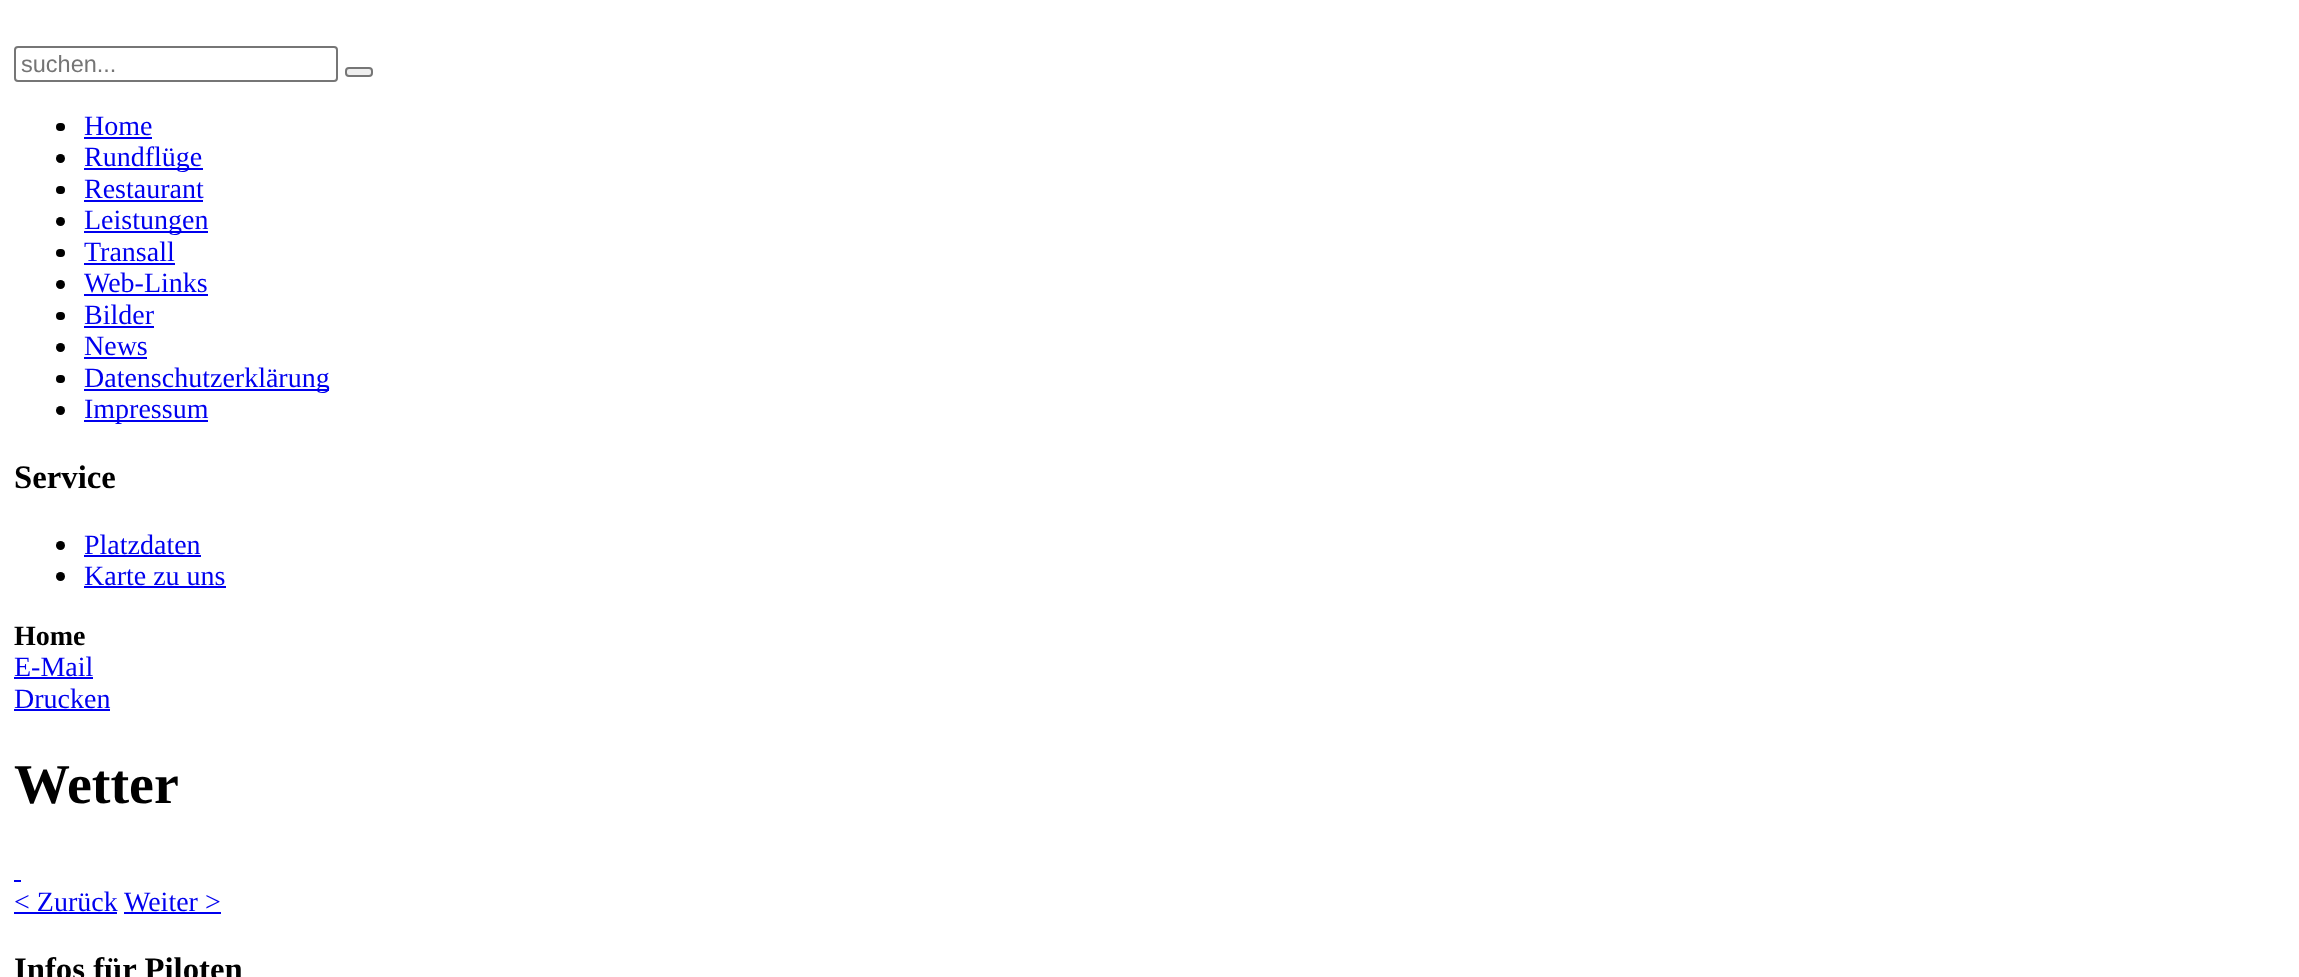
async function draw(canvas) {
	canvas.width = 2299;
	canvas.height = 977;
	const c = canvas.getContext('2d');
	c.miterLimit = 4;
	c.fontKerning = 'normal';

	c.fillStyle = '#fff';
	c.fillRect(0, 0, 2299, 977);
	c.beginPath();
	c.roundRect(15, 47, 322, 34, 3);
	c.strokeStyle = '#767676';
	c.lineWidth = 2;
	c.stroke();
	c.font = '23.5px Liberation Sans';
	c.fillStyle = '#757575';
	c.fillText('suchen...', 21, 72);
	c.fillStyle = '#efefef';
	c.beginPath();
	c.roundRect(346, 68, 26, 8, 3);
	c.fill();
	c.stroke();
	c.fillStyle = '#000';
	c.beginPath();
	c.roundRect(56, 123, 9, 8, 4);
	c.fill();
	c.font = '28px Liberation Serif';
	c.fillStyle = '#00e';
	c.fillText('Home', 84, 135);
	c.fillRect(84, 137, 68, 2);
	c.fillStyle = '#000';
	c.beginPath();
	c.arc(60.5, 158.5, 4.5, 0, 2 * Math.PI);
	c.fill();
	c.fillStyle = '#00e';
	c.fillRect(84, 168, 119, 2);
	c.fillText('Rundflüge', 84, 166);
	c.fillStyle = '#000';
	c.beginPath();
	c.roundRect(56, 186, 9, 8, 4);
	c.fill();
	c.fillStyle = '#00e';
	c.fillText('Restaurant', 84, 198);
	c.fillRect(84, 200, 119, 2);
	c.fillStyle = '#000';
	c.beginPath();
	c.arc(60.5, 221.5, 4.5, 0, 2 * Math.PI);
	c.fill();
	c.fillStyle = '#00e';
	c.fillRect(84, 231, 124, 2);
	c.fillText('Leistungen', 84, 229);
	c.fillStyle = '#000';
	c.beginPath();
	c.roundRect(56, 249, 9, 8, 4);
	c.fill();
	c.fillStyle = '#00e';
	c.fillText('Transall', 84, 261);
	c.fillRect(84, 263, 91, 2);
	c.fillStyle = '#000';
	c.beginPath();
	c.arc(60.5, 284.5, 4.5, 0, 2 * Math.PI);
	c.fill();
	c.fillStyle = '#00e';
	c.fillText('Web-Links', 84, 292);
	c.fillRect(84, 294, 124, 2);
	c.fillStyle = '#000';
	c.beginPath();
	c.roundRect(56, 312, 9, 8, 4);
	c.fill();
	c.fillStyle = '#00e';
	c.fillText('Bilder', 84, 324);
	c.fillRect(84, 326, 70, 2);
	c.fillStyle = '#000';
	c.beginPath();
	c.arc(60.5, 347.5, 4.5, 0, 2 * Math.PI);
	c.fill();
	c.fillStyle = '#00e';
	c.fillText('News', 84, 355);
	c.fillRect(84, 357, 63, 2);
	c.fillStyle = '#000';
	c.beginPath();
	c.roundRect(56, 375, 9, 8, 4);
	c.fill();
	c.fillStyle = '#00e';
	c.fillRect(84, 389, 245, 2);
	c.fillText('Datenschutzerklärung', 84, 387);
	c.fillStyle = '#000';
	c.beginPath();
	c.arc(60.5, 410.5, 4.5, 0, 2 * Math.PI);
	c.fill();
	c.fillStyle = '#00e';
	c.fillRect(84, 420, 124, 2);
	c.fillText('Impressum', 84, 418);
	c.font = 'bold 32.75px Liberation Serif';
	c.fillStyle = '#000';
	c.fillText('Service', 14, 488);
	c.beginPath();
	c.arc(60.5, 545.5, 4.5, 0, 2 * Math.PI);
	c.fill();
	c.font = '28px Liberation Serif';
	c.fillStyle = '#00e';
	c.fillText('Platzdaten', 84, 554);
	c.fillRect(84, 555, 117, 2);
	c.fillStyle = '#000';
	c.beginPath();
	c.arc(60.5, 576.5, 4.5, 0, 2 * Math.PI);
	c.fill();
	c.fillStyle = '#00e';
	c.fillText('Karte zu uns', 84, 585);
	c.fillRect(84, 586, 142, 2);
	c.font = 'bold 28px Liberation Serif';
	c.fillStyle = '#000';
	c.fillText('Home', 14, 645);
	c.font = '28px Liberation Serif';
	c.fillStyle = '#00e';
	c.fillText('E-Mail', 14, 676);
	c.fillRect(14, 677, 79, 2);
	c.fillText('Drucken', 14, 708);
	c.fillRect(14, 709, 96, 2);
	c.font = 'bold 56px Liberation Serif';
	c.fillStyle = '#000';
	c.fillText('Wetter', 14, 803);
	c.fillStyle = '#00e';
	c.fillRect(14, 880, 7, 2);
	c.font = '28px Liberation Serif';
	c.fillText('< Zurück', 14, 911);
	c.fillRect(14, 912, 103, 2);
	c.fillText('Weiter >', 124, 911);
	c.fillRect(124, 912, 97, 2);
	c.font = 'bold 32.75px Liberation Serif';
	c.fillStyle = '#000';
	c.fillText('Infos für Piloten', 14, 980);
}

draw(document.querySelector('canvas'));
